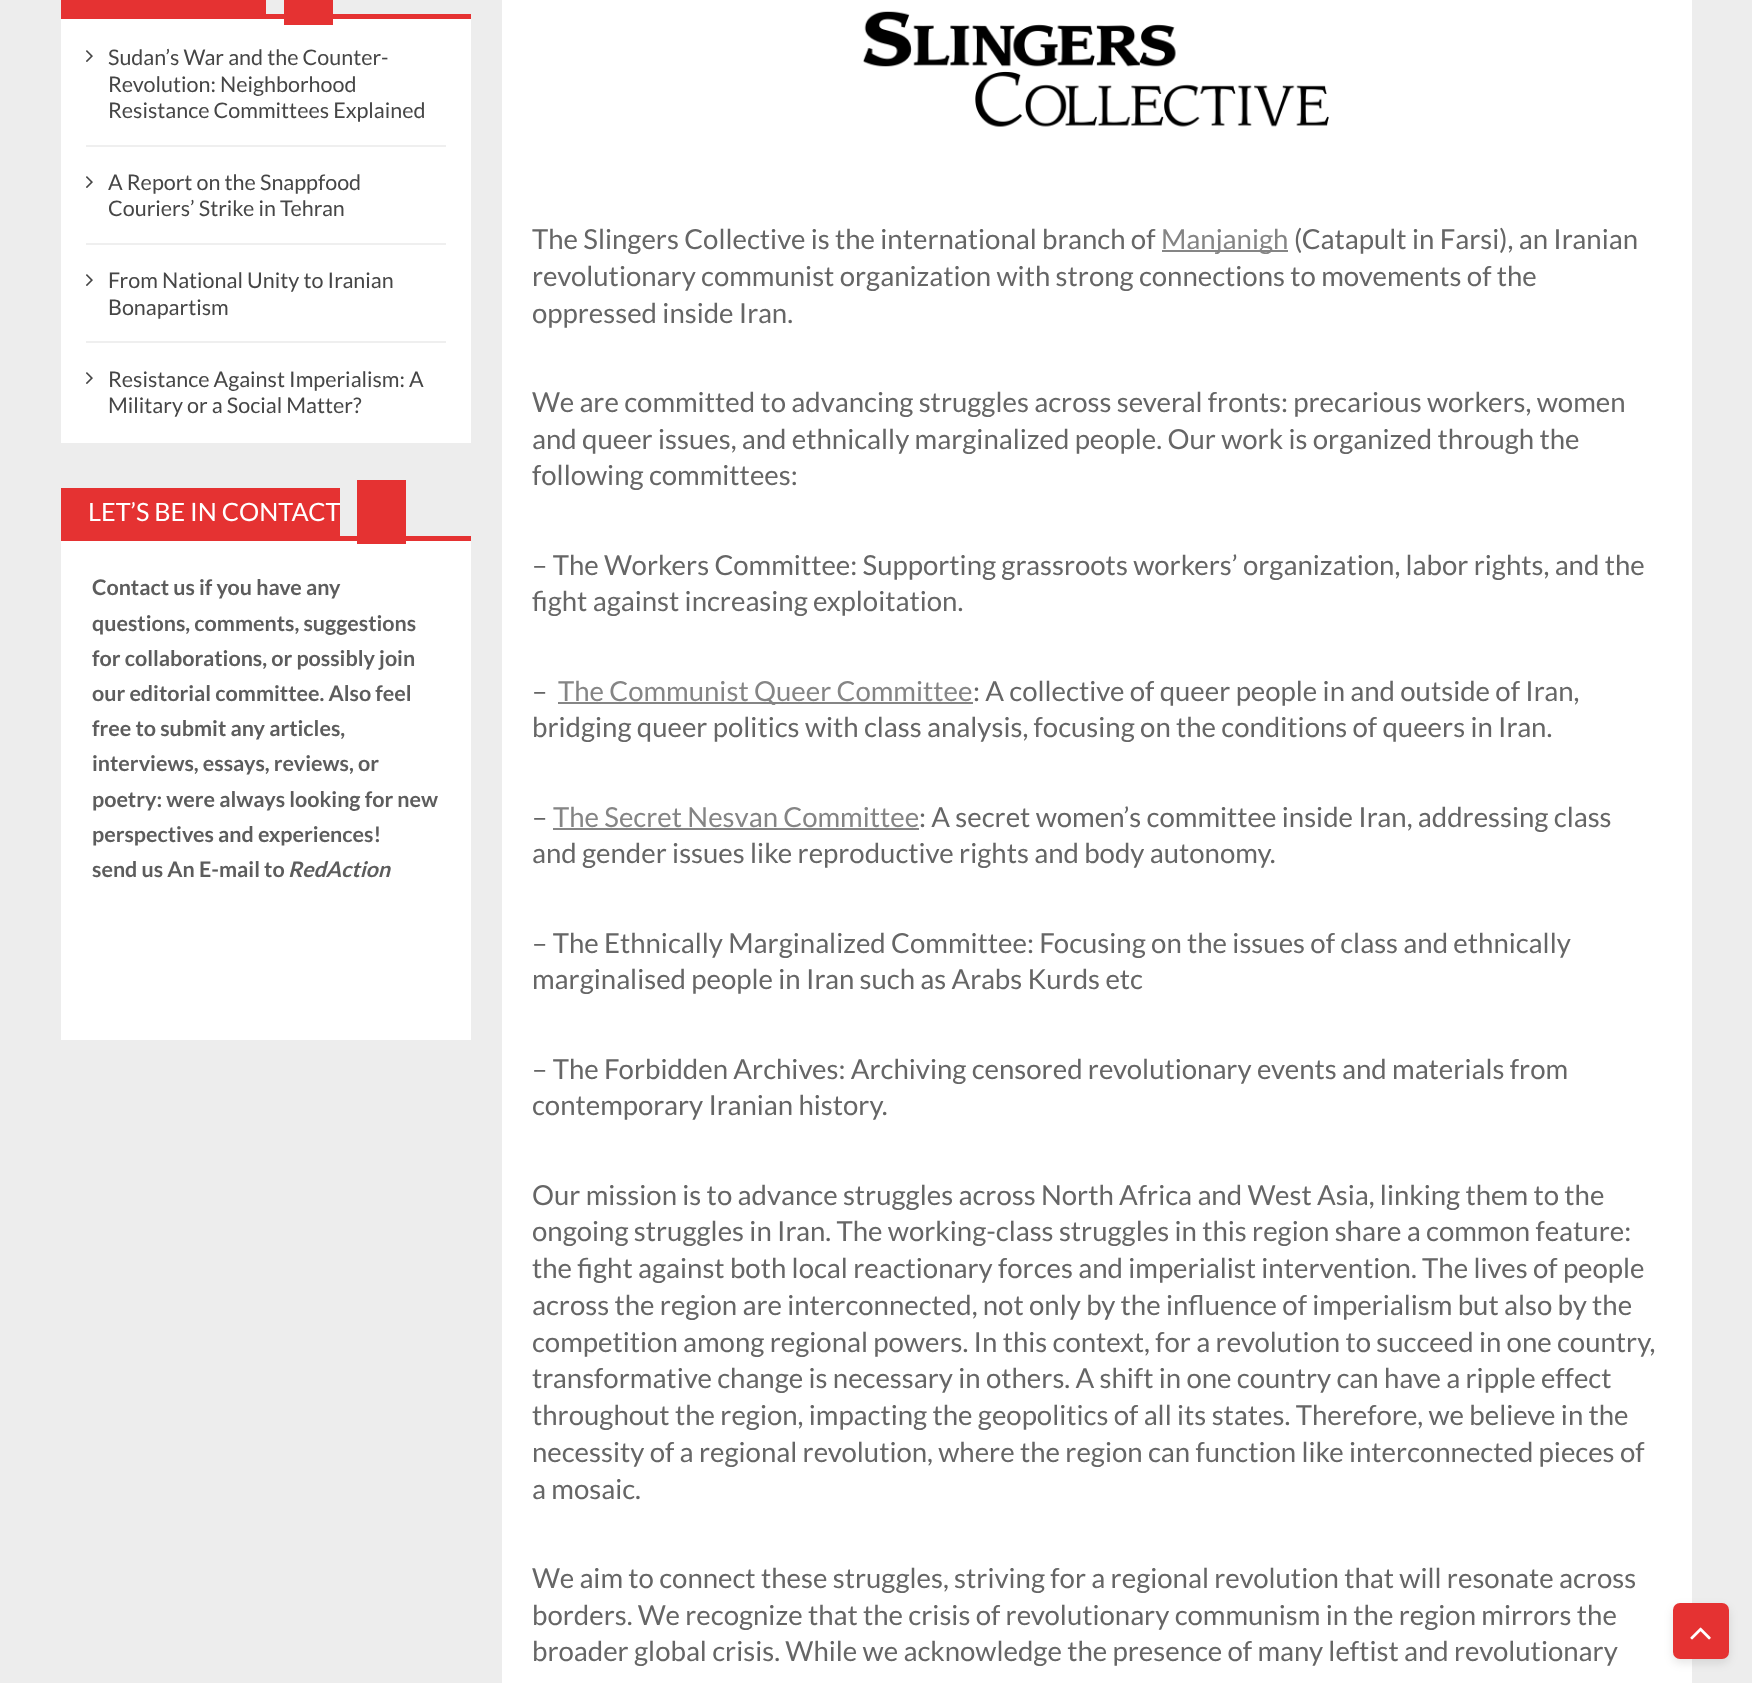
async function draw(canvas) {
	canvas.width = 1752;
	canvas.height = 1683;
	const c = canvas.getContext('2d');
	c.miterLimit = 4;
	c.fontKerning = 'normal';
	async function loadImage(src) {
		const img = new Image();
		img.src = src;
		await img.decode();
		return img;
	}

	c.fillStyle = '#ededed';
	c.fillRect(0, 0, 1752, 1683);
	for (const [x, y, w, h, color] of [
		[61, 0, 205, 14, '#e53232'],
		[61, 14, 410, 5, '#e53232'],
		[61, 19, 410, 424, '#fff'],
		[284, 0, 49, 25, '#e53232'],
		[86, 145, 360, 2, '#efefef'],
	]) {
		c.fillStyle = color;
		c.fillRect(x, y, w, h);
	}
	c.drawImage(await loadImage('img1.png'), 86, 50, 7, 12);
	c.font = '21.5px Lato';
	c.fillStyle = '#464646';
	for (const [text, x, y] of [
		['Sudan’s War and the Counter-', 108, 65],
		['Revolution: Neighborhood', 108, 92],
		['Resistance Committees Explained', 108, 118],
	]) {
		c.fillText(text, x, y);
	}
	c.fillStyle = '#efefef';
	c.fillRect(86, 243, 360, 2);
	c.drawImage(await loadImage('img1.png'), 86, 176, 7, 12);
	c.fillStyle = '#464646';
	c.fillText('A Report on the Snappfood', 108, 190);
	c.fillText('Couriers’ Strike in Tehran', 108, 216);
	c.fillStyle = '#efefef';
	c.fillRect(86, 341, 360, 2);
	c.drawImage(await loadImage('img1.png'), 86, 274, 7, 12);
	c.fillStyle = '#464646';
	c.fillText('From National Unity to Iranian', 108, 288);
	c.fillText('Bonapartism', 108, 315);
	c.drawImage(await loadImage('img1.png'), 86, 372, 7, 12);
	c.fillText('Resistance Against Imperialism: A', 108, 387);
	c.fillText('Military or a Social Matter?', 108, 413);
	c.fillStyle = '#e53232';
	c.fillRect(61, 488, 279, 48);
	c.font = '25.25px Lato';
	c.fillStyle = '#fff';
	c.fillText('LET’S BE IN CONTACT', 88, 521);
	for (const [x, y, w, h, color] of [
		[61, 536, 410, 5, '#e53232'],
		[61, 541, 410, 499, '#fff'],
		[357, 480, 49, 64, '#e53232'],
	]) {
		c.fillStyle = color;
		c.fillRect(x, y, w, h);
	}
	c.font = 'bold 21.5px Lato';
	c.fillStyle = '#5d5d5d';
	for (const [text, x, y] of [
		['Contact us if you have any', 92, 595],
		['questions, comments, suggestions', 92, 631],
		['for collaborations, or possibly join', 92, 666],
		['our editorial committee. Also feel', 92, 701],
		['free to submit any articles,', 92, 736],
		['interviews, essays, reviews, or', 92, 771],
		['poetry: were always looking for new', 92, 807],
		['perspectives and experiences!', 92, 842],
		['send us An E-mail to', 92, 877],
	]) {
		c.fillText(text, x, y);
	}
	c.font = 'italic bold 21.5px Lato';
	c.fillText('RedAction', 288, 877);
	c.fillStyle = '#fff';
	c.fillRect(502, 0, 1190, 1683);
	c.drawImage(await loadImage('img2.png'), 863, 11, 466, 116);
	c.font = '27.55px Lato';
	c.fillStyle = '#666';
	c.fillText('The Slingers Collective is the international branch of', 532, 249);
	c.fillStyle = '#858585';
	c.fillRect(1162, 250, 126, 2);
	c.fillText('Manjanigh', 1161, 249);
	c.fillStyle = '#666';
	for (const [text, x, y] of [
		['(Catapult in Farsi), an Iranian', 1294, 249],
		['revolutionary communist organization with strong connections to movements of the', 532, 286],
		['oppressed inside Iran.', 532, 323],
		['We are committed to advancing struggles across several fronts: precarious workers, women', 532, 412],
		['and queer issues, and ethnically marginalized people. Our work is organized through the', 532, 449],
		['following committees:', 532, 485],
		['– The Workers Committee: Supporting grassroots workers’ organization, labor rights, and the', 532, 575],
		['fight against increasing exploitation.', 532, 611],
		['–', 532, 701],
	]) {
		c.fillText(text, x, y);
	}
	c.fillStyle = '#858585';
	c.fillRect(558, 702, 415, 2);
	c.fillText('The Communist Queer Committee', 558, 701);
	c.fillStyle = '#666';
	for (const [text, x, y] of [
		[': A collective of queer people in and outside of Iran,', 973, 701],
		['bridging queer politics with class analysis, focusing on the conditions of queers in Iran.', 532, 737],
		['–', 532, 827],
	]) {
		c.fillText(text, x, y);
	}
	c.fillStyle = '#858585';
	c.fillText('The Secret Nesvan Committee', 553, 827);
	c.fillRect(553, 828, 366, 2);
	c.fillStyle = '#666';
	for (const [text, x, y] of [
		[': A secret women’s committee inside Iran, addressing class', 919, 827],
		['and gender issues like reproductive rights and body autonomy.', 532, 863],
		['– The Ethnically Marginalized Committee: Focusing on the issues of class and ethnically', 532, 953],
		['marginalised people in Iran such as Arabs Kurds etc', 532, 989],
		['– The Forbidden Archives: Archiving censored revolutionary events and materials from', 532, 1079],
		['contemporary Iranian history.', 532, 1115],
		['Our mission is to advance struggles across North Africa and West Asia, linking them to the', 532, 1205],
		['ongoing struggles in Iran. The working-class struggles in this region share a common feature:', 532, 1241],
		['the fight against both local reactionary forces and imperialist intervention. The lives of people', 532, 1278],
		['across the region are interconnected, not only by the influence of imperialism but also by the', 532, 1315],
		['competition among regional powers. In this context, for a revolution to succeed in one country,', 532, 1352],
		['transformative change is necessary in others. A shift in one country can have a ripple effect', 532, 1388],
		['throughout the region, impacting the geopolitics of all its states. Therefore, we believe in the', 532, 1425],
		['necessity of a regional revolution, where the region can function like interconnected pieces of', 532, 1462],
		['a mosaic.', 532, 1499],
		['We aim to connect these struggles, striving for a regional revolution that will resonate across', 532, 1588],
		['borders. We recognize that the crisis of revolutionary communism in the region mirrors the', 532, 1625],
		['broader global crisis. While we acknowledge the presence of many leftist and revolutionary', 532, 1661],
	]) {
		c.fillText(text, x, y);
	}
	c.fillStyle = '#0000001a';
	c.filter = 'blur(5px)';
	c.beginPath();
	c.roundRect(1673, 1607, 56, 56, 7);
	c.fill();
	c.filter = 'none';
	c.fillStyle = '#e53232';
	c.beginPath();
	c.roundRect(1673, 1603, 56, 56, 7);
	c.fill();
	c.drawImage(await loadImage('img3.png'), 1690, 1627, 21, 13);
}

draw(document.querySelector('canvas'));
